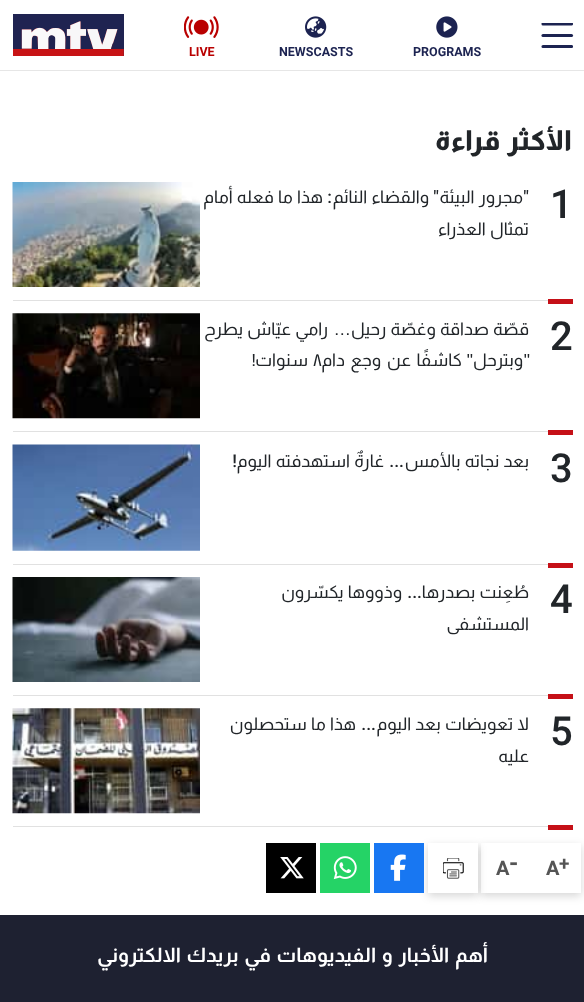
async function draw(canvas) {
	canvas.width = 584;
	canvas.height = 1002;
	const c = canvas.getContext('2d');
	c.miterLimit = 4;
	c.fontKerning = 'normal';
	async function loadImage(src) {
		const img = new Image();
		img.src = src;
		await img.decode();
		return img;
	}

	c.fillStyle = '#fff';
	c.fillRect(0, 0, 584, 1002);
	c.fillStyle = '#e6e6e6';
	c.fillRect(0, 70, 584, 1);
	c.save();
	c.beginPath();
	c.rect(541, 23, 32, 25);
	c.clip();
	c.beginPath();
	c.moveTo(543, 24);
	c.lineTo(571.5, 24);
	c.strokeStyle = '#1c2351';
	c.lineWidth = 3.1;
	c.lineCap = 'round';
	c.stroke();
	c.restore();
	c.beginPath();
	c.moveTo(543, 35.5);
	c.lineTo(571.5, 35.5);
	c.strokeStyle = '#1c2351';
	c.lineWidth = 3.1;
	c.lineCap = 'round';
	c.stroke();
	c.save();
	c.beginPath();
	c.rect(541, 23, 32, 25);
	c.clip();
	c.beginPath();
	c.moveTo(543, 46.5);
	c.lineTo(571.5, 46.5);
	c.stroke();
	c.restore();
	c.drawImage(await loadImage('img1.png'), 13, 14, 111, 42);
	c.drawImage(await loadImage('img2.png'), 436, 16, 22, 22);
	c.font = 'bold 12.5px Roboto';
	c.fillStyle = '#1c2351';
	c.fillText('PROGRAMS', 413, 56);
	c.drawImage(await loadImage('img3.png'), 305, 16, 22, 22);
	c.fillText('NEWSCASTS', 279, 56);
	c.drawImage(await loadImage('img4.png'), 184, 16, 35, 22);
	c.fillStyle = '#b90000';
	c.fillText('LIVE', 189, 56);
	c.wordSpacing = '2px';
	c.direction = 'rtl';
	c.font = '800 27.5px Almarai';
	c.fillStyle = '#212529';
	c.fillText('الأكثر قراءة', 572, 150);
	c.fillStyle = '#e1e1e1';
	c.fillRect(13, 300, 535, 1);
	c.wordSpacing = '0px';
	c.direction = 'ltr';
	c.font = '500 40px Roboto';
	c.fillStyle = '#212529';
	c.fillText('1', 550, 218);
	c.direction = 'rtl';
	c.font = '500 17.5px Roboto';
	c.fillText('"', 529, 203);
	c.wordSpacing = '1px';
	c.font = '17.5px Almarai';
	c.fillText('مجرور البيئة', 523, 203);
	c.wordSpacing = '0px';
	c.font = '500 17.5px Roboto';
	c.fillText('"', 439, 203);
	c.wordSpacing = '1px';
	c.font = '17.5px Almarai';
	c.fillText('والقضاء النائم', 429, 203);
	c.fillText('هذا ما فعله أمام', 323, 203);
	c.wordSpacing = '0px';
	c.font = '500 17.5px Roboto';
	c.fillText(':', 332, 203);
	c.wordSpacing = '1px';
	c.font = '17.5px Almarai';
	c.fillText('تمثال العذراء', 529, 235);
	c.drawImage(await loadImage('img5.png'), 12, 182, 188, 105);
	c.fillStyle = '#c51017';
	c.fillRect(548, 299, 25, 5);
	c.fillStyle = '#e1e1e1';
	c.fillRect(13, 431, 535, 1);
	c.wordSpacing = '0px';
	c.direction = 'ltr';
	c.font = '500 40px Roboto';
	c.fillStyle = '#212529';
	c.fillText('2', 550, 350);
	c.wordSpacing = '1px';
	c.direction = 'rtl';
	c.font = '17.5px Almarai';
	c.fillText('قصّة صداقة وغصّة رحيل', 529, 335);
	c.wordSpacing = '0px';
	c.font = '17.5px Liberation Sans';
	c.fillText('…', 351, 335);
	c.wordSpacing = '1px';
	c.font = '17.5px Almarai';
	c.fillText('رامي عيّاش يطرح', 328, 335);
	c.wordSpacing = '0px';
	c.font = '17.5px Liberation Sans';
	c.fillText('"', 530, 366);
	c.font = '17.5px Almarai';
	c.fillText('وبترحل', 523, 366);
	c.font = '17.5px Liberation Sans';
	c.fillText('"', 473, 366);
	c.font = '17.5px Almarai';
	for (const [text, x, y] of [
		['كاشفًا', 462, 366],
		['عن', 411, 366],
		['وجع', 381, 366],
		['دام', 345, 366],
	]) {
		c.fillText(text, x, y);
	}
	c.direction = 'ltr';
	c.fillText('٨', 313, 366);
	c.direction = 'rtl';
	c.fillText('سنوات', 308, 366);
	c.font = '17.5px Liberation Sans';
	c.fillText('!', 256, 366);
	c.drawImage(await loadImage('img6.png'), 12, 313, 188, 106);
	c.fillStyle = '#c51017';
	c.fillRect(548, 430, 25, 5);
	c.fillStyle = '#e1e1e1';
	c.fillRect(13, 564, 535, 1);
	c.direction = 'ltr';
	c.font = '500 40px Roboto';
	c.fillStyle = '#212529';
	c.fillText('3', 550, 482);
	c.wordSpacing = '1px';
	c.direction = 'rtl';
	c.font = '17.5px Almarai';
	c.fillText('بعد نجاته بالأمس', 529, 467);
	c.wordSpacing = '0px';
	c.font = '500 17.5px Roboto';
	c.fillText('...', 404, 467);
	c.wordSpacing = '1px';
	c.font = '17.5px Almarai';
	c.fillText('غارةٌ استهدفته اليوم', 384, 467);
	c.wordSpacing = '0px';
	c.font = '500 17.5px Roboto';
	c.fillText('!', 237, 467);
	c.drawImage(await loadImage('img7.png'), 12, 444, 188, 107);
	c.fillStyle = '#c51017';
	c.fillRect(548, 563, 25, 5);
	c.fillStyle = '#e1e1e1';
	c.fillRect(13, 695, 535, 1);
	c.direction = 'ltr';
	c.font = '500 40px Roboto';
	c.fillStyle = '#212529';
	c.fillText('4', 550, 613);
	c.wordSpacing = '1px';
	c.direction = 'rtl';
	c.font = '17.5px Almarai';
	c.fillText('طُعِنت بصدرها', 529, 598);
	c.wordSpacing = '0px';
	c.font = '500 17.5px Roboto';
	c.fillText('...', 422, 598);
	c.wordSpacing = '1px';
	c.font = '17.5px Almarai';
	c.fillText('وذووها يكسّرون', 402, 598);
	c.wordSpacing = '0px';
	c.fillText('المستشفى', 529, 630);
	c.drawImage(await loadImage('img8.png'), 12, 577, 188, 105);
	c.fillStyle = '#c51017';
	c.fillRect(548, 694, 25, 5);
	c.fillStyle = '#e1e1e1';
	c.fillRect(13, 826, 535, 1);
	c.direction = 'ltr';
	c.font = '500 40px Roboto';
	c.fillStyle = '#212529';
	c.fillText('5', 550, 745);
	c.wordSpacing = '1px';
	c.direction = 'rtl';
	c.font = '17.5px Almarai';
	c.fillText('لا تعويضات بعد اليوم', 529, 730);
	c.wordSpacing = '0px';
	c.font = '500 17.5px Roboto';
	c.fillText('...', 376, 730);
	c.wordSpacing = '1px';
	c.font = '17.5px Almarai';
	c.fillText('هذا ما ستحصلون', 356, 730);
	c.wordSpacing = '0px';
	c.fillText('عليه', 529, 762);
	c.drawImage(await loadImage('img9.png'), 12, 708, 188, 106);
	c.fillStyle = '#c51017';
	c.fillRect(548, 825, 25, 5);
	c.fillStyle = '#00000029';
	c.filter = 'blur(4px)';
	c.beginPath();
	c.rect(481, 846, 100, 50);
	c.fill();
	c.filter = 'none';
	c.fillStyle = '#fff';
	c.fillRect(481, 843, 100, 50);
	c.direction = 'ltr';
	c.font = 'bold 19px Roboto';
	c.fillStyle = '#555';
	c.fillText('+', 559, 870);
	c.font = 'bold 20px Roboto';
	c.fillText('A', 546, 875);
	c.font = 'bold 24px Roboto';
	c.fillText('-', 509, 871);
	c.font = 'bold 20px Roboto';
	c.fillText('A', 496, 875);
	c.fillStyle = '#00000029';
	c.filter = 'blur(4px)';
	c.beginPath();
	c.rect(428, 846, 50, 50);
	c.fill();
	c.filter = 'none';
	c.fillStyle = '#fff';
	c.fillRect(428, 843, 50, 50);
	c.drawImage(await loadImage('img10.png'), 443, 858, 21, 21);
	c.fillStyle = '#1877f2';
	c.fillRect(374, 843, 50, 50);
	c.drawImage(await loadImage('img11.png'), 390, 854, 16, 27);
	c.fillStyle = '#25d366';
	c.fillRect(320, 843, 50, 50);
	c.drawImage(await loadImage('img12.png'), 333, 856, 24, 24);
	c.fillStyle = '#000';
	c.fillRect(266, 843, 50, 50);
	c.drawImage(await loadImage('img13.png'), 280, 857, 24, 22);
	c.fillStyle = '#1e2131';
	c.fillRect(0, 915, 584, 87);
	c.wordSpacing = '2px';
	c.direction = 'rtl';
	c.font = 'bold 20px Almarai';
	c.fillStyle = '#fff';
	c.fillText('أهم الأخبار و الفيديوهات في بريدك الالكتروني', 488, 962);
}

draw(document.querySelector('canvas'));
